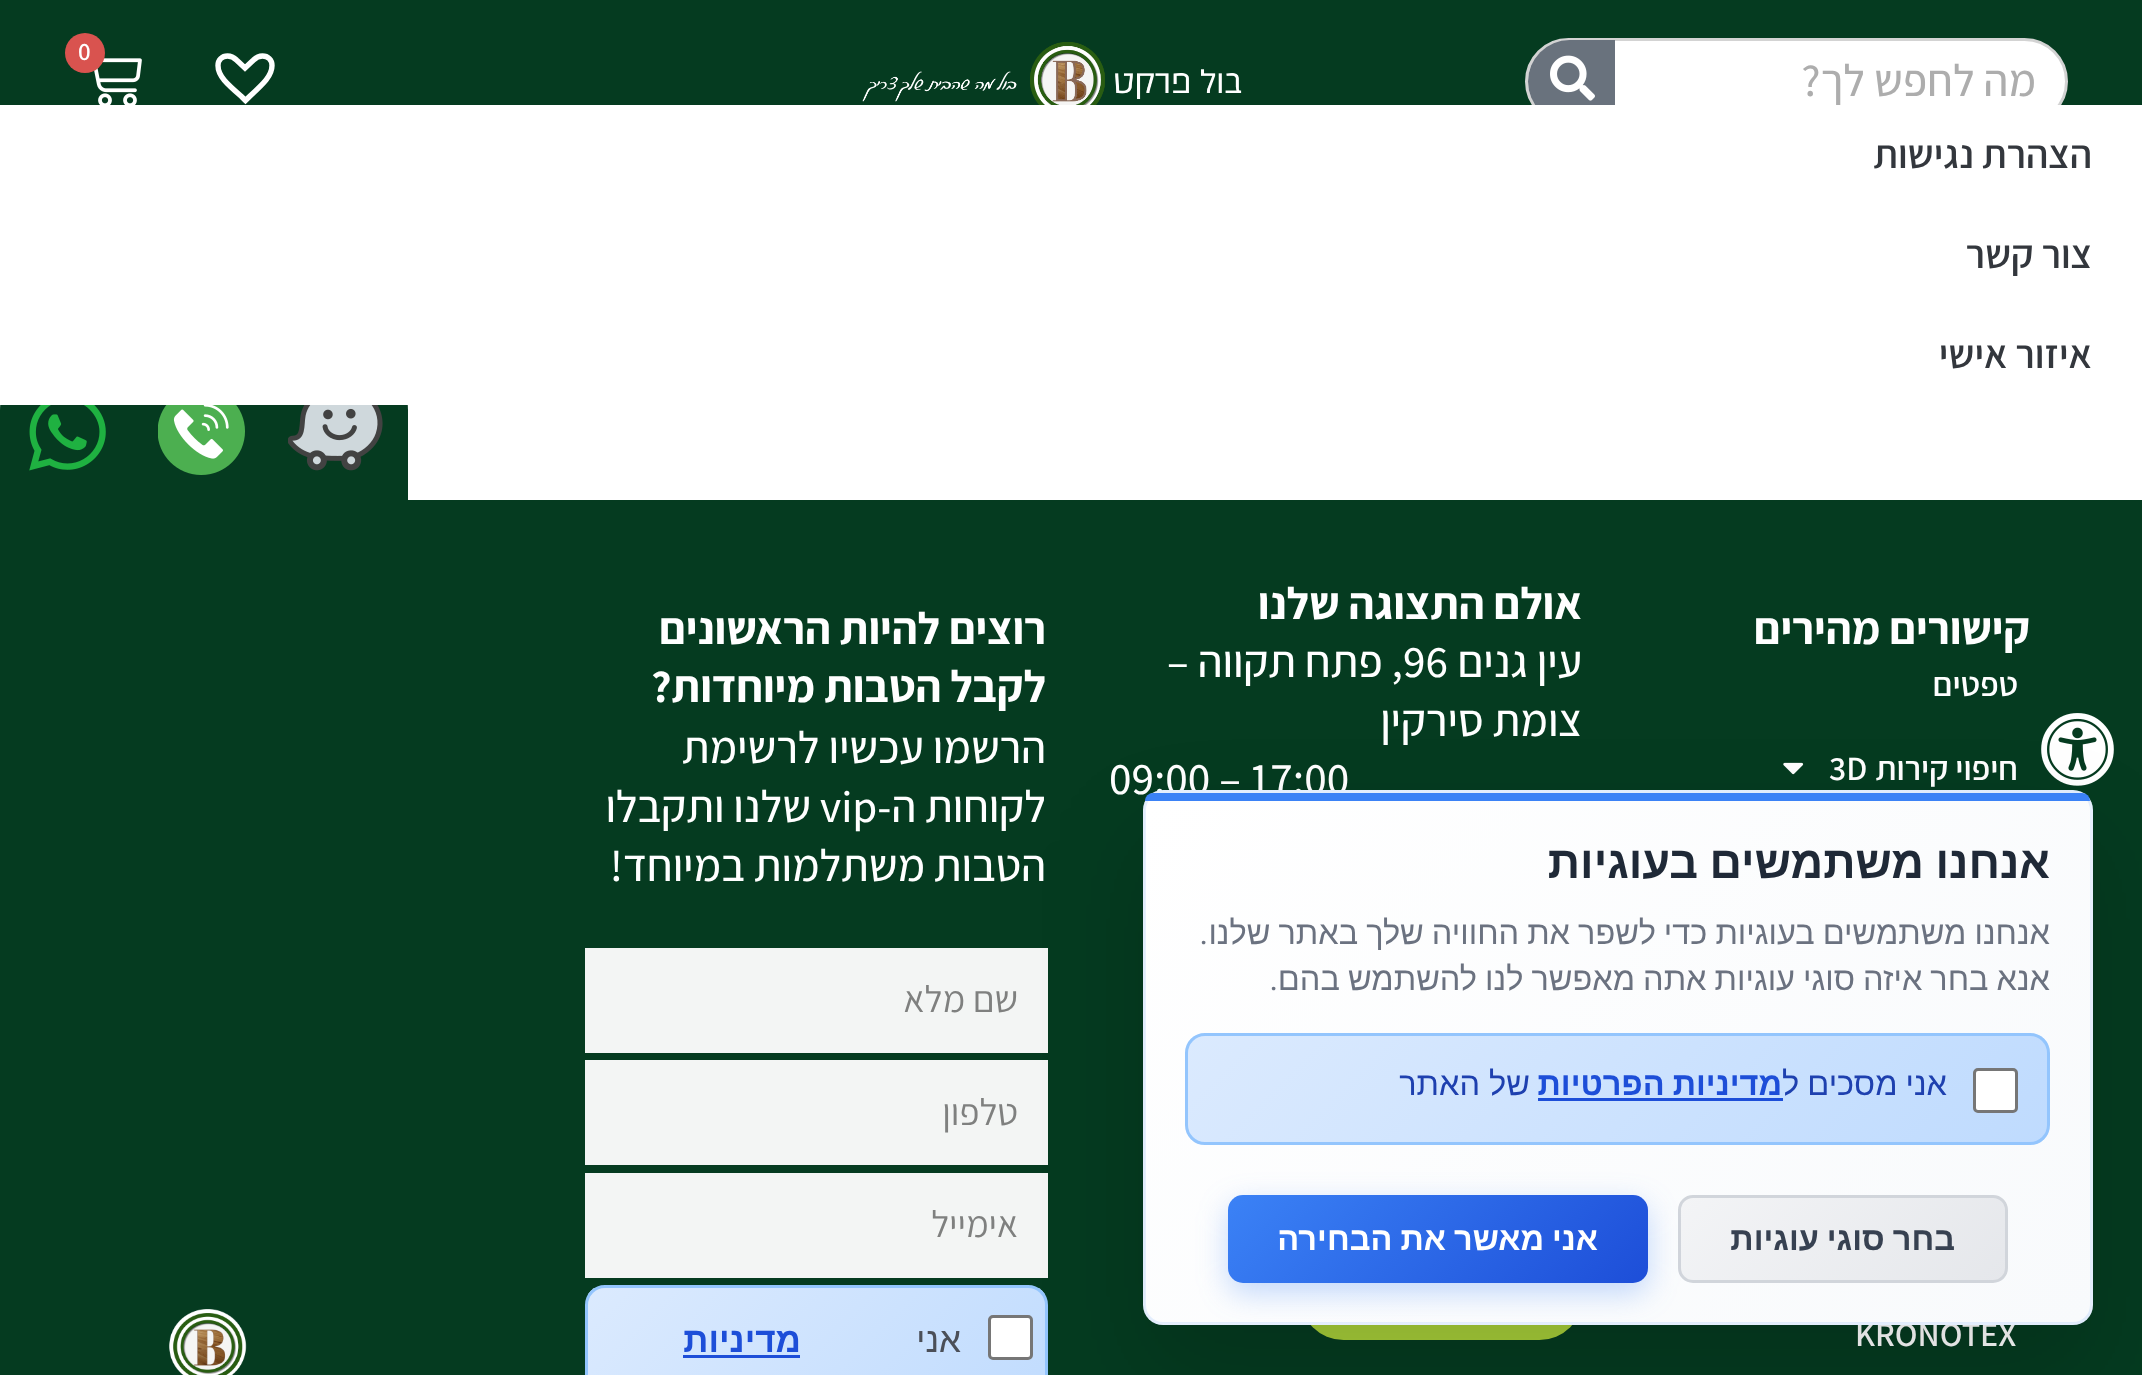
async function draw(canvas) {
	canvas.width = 2142;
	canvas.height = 1375;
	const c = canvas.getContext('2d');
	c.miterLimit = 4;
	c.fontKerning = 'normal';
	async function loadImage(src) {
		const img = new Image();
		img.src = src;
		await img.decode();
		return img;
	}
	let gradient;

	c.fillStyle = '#fff';
	c.fillRect(0, 0, 2142, 1375);
	c.fillStyle = '#053b20';
	c.fillRect(0, 0, 2142, 105);
	c.fillStyle = '#fff';
	c.beginPath();
	c.roundRect(1526.5, 39.5, 540, 84, 42);
	c.fill();
	c.strokeStyle = '#d3d3d3';
	c.lineWidth = 3;
	c.stroke();
	c.direction = 'rtl';
	c.font = '500 45px Assistant';
	c.fillStyle = '#adadad';
	c.fillText('מה לחפש לך?', 2036, 96);
	c.fillStyle = '#69727d';
	c.beginPath();
	c.roundRect(1528, 40, 87, 83, [41.5, 0, 0, 41.5]);
	c.fill();
	c.drawImage(await loadImage('img1.png'), 1550, 55, 45, 46);
	c.drawImage(await loadImage('img2.png'), 862, 42, 380, 63);
	c.beginPath();
	c.moveTo(245.5, 100.5);
	c.lineTo(241.5, 96.5);
	c.bezierCurveTo(227, 84, 218, 76, 218, 65.5);
	c.bezierCurveTo(218, 60, 222, 56, 227.5, 56);
	c.bezierCurveTo(231, 56, 234, 57.5, 236.5, 60);
	c.lineTo(245, 68);
	c.lineTo(253.5, 60);
	c.bezierCurveTo(256, 57.5, 259, 56, 262.5, 56);
	c.bezierCurveTo(268, 56, 272, 60, 272, 65.5);
	c.bezierCurveTo(272, 76, 263, 84, 249, 97);
	c.closePath();
	c.strokeStyle = '#fff';
	c.lineWidth = 5.4;
	c.stroke();
	c.drawImage(await loadImage('img3.png'), 94, 58, 48, 47);
	c.fillStyle = '#d9534f';
	c.beginPath();
	c.arc(85, 53, 20, 0, 2 * Math.PI);
	c.fill();
	c.direction = 'ltr';
	c.font = '600 25px Assistant';
	c.fillStyle = '#fff';
	c.fillText('0', 78, 60);
	c.fillStyle = '#053b20';
	c.beginPath();
	c.roundRect(0, 360, 408, 140, [50, 50, 0, 0]);
	c.fill();
	c.fillStyle = '#fff';
	c.fillRect(0, 105, 2061, 300);
	c.direction = 'rtl';
	c.font = '600 40px Assistant';
	c.fillStyle = '#33373d';
	for (const [text, x, y] of [
		['הצהרת נגישות', 2092, 168],
		['צור קשר', 2092, 268],
		['איזור אישי', 2092, 368],
	]) {
		c.fillText(text, x, y);
	}
	c.drawImage(await loadImage('img4.png'), 288, 405, 95, 66);
	c.drawImage(await loadImage('img5.png'), 158, 405, 87, 70);
	c.drawImage(await loadImage('img6.png'), 29, 405, 77, 66);
	c.fillStyle = '#053b20';
	c.fillRect(0, 500, 2142, 875);
	c.font = 'bold 45px Assistant';
	c.fillStyle = '#fff';
	c.fillText('קישורים מהירים', 2030, 644);
	c.font = '600 34px Assistant';
	c.fillText('טפטים', 2018, 696);
	c.fillText('חיפוי קירות', 2018, 780);
	c.direction = 'ltr';
	c.fillText('3D', 1829, 780);
	c.drawImage(await loadImage('img7.png'), 1783, 762, 21, 13);
	c.fillText('KRONOTEX', 1855, 1346);
	c.direction = 'rtl';
	c.font = 'bold 45px Assistant';
	c.fillText('אולם התצוגה שלנו', 1582, 619);
	c.font = '500 45px Assistant';
	c.fillText('עין גנים', 1582, 677);
	c.direction = 'ltr';
	c.fillText('96', 1403, 677);
	c.direction = 'rtl';
	c.fillText(', פתח תקווה –', 1403, 677);
	c.fillText('צומת סירקין', 1582, 736);
	c.direction = 'ltr';
	c.fillText('09:00 – 17:00', 1109, 794);
	c.fillStyle = '#a7cf39';
	c.beginPath();
	c.roundRect(1300, 1253, 283, 87, 43.5);
	c.fill();
	c.direction = 'rtl';
	c.font = 'bold 45px Assistant';
	c.fillStyle = '#fff';
	c.fillText('רוצים להיות הראשונים', 1046, 644);
	c.fillText('לקבל הטבות מיוחדות?', 1046, 702);
	c.font = '500 45px Assistant';
	c.fillText('הרשמו עכשיו לרשימת', 1046, 763);
	c.fillText('לקוחות ה-', 1046, 822);
	c.direction = 'ltr';
	c.fillText('vip', 820, 822);
	c.direction = 'rtl';
	c.fillText('שלנו ותקבלו', 811, 822);
	c.fillText('הטבות משתלמות במיוחד!', 1046, 881);
	c.fillStyle = '#f3f5f4';
	c.fillRect(585, 948, 463, 105);
	c.font = '37.5px Assistant';
	c.fillStyle = '#7f807f';
	c.fillText('שם מלא', 1018, 1012);
	c.fillStyle = '#f3f5f4';
	c.fillRect(585, 1060, 463, 105);
	c.fillStyle = '#7f807f';
	c.fillText('טלפון', 1018, 1125);
	c.fillStyle = '#f3f5f4';
	c.fillRect(585, 1173, 463, 105);
	c.fillStyle = '#7f807f';
	c.fillText('אימייל', 1018, 1237);
	c.save();
	c.beginPath();
	c.roundRect(585, 1285, 463, 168, 20);
	c.clip();
	gradient = c.createLinearGradient(661, 1214, 971, 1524);
	gradient.addColorStop(0, '#dbeafe');
	gradient.addColorStop(1, '#bfdbfe');
	c.fillStyle = gradient;
	c.fillRect(588, 1288, 457, 87);
	c.restore();
	c.beginPath();
	c.roundRect(586.5, 1286.5, 460, 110, 18.5);
	c.strokeStyle = '#93c5fd';
	c.lineWidth = 3;
	c.stroke();
	c.fillStyle = '#fff';
	c.beginPath();
	c.roundRect(989.5, 1316.5, 42, 42, 3.5);
	c.fill();
	c.strokeStyle = '#767676';
	c.stroke();
	c.font = '35px Liberation Sans';
	c.fillStyle = '#4b4f58';
	c.fillText('אני', 961, 1352);
	c.font = 'bold 35px Liberation Sans';
	c.fillStyle = '#1d4ed8';
	c.fillText('מדיניות', 801, 1352);
	c.fillRect(683, 1355, 117, 3);
	c.drawImage(await loadImage('img8.png'), 169, 1309, 78, 66);
	c.drawImage(await loadImage('img9.png'), 2041, 713, 73, 73);
	c.fillStyle = '#00000026';
	c.filter = 'blur(50px)';
	c.beginPath();
	c.roundRect(1143, 840, 950, 535, 20);
	c.fill();
	c.filter = 'none';
	c.save();
	c.beginPath();
	c.roundRect(1143, 790, 950, 535, 20);
	c.clip();
	gradient = c.createLinearGradient(1249, 159, 1986, 896);
	gradient.addColorStop(0, '#fff');
	gradient.addColorStop(1, '#f8fafc');
	c.fillStyle = gradient;
	c.fillRect(1145, 790, 945, 3);
	gradient = c.createLinearGradient(304, 689, 1041, 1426);
	gradient.addColorStop(0, '#fff');
	gradient.addColorStop(1, '#f8fafc');
	c.fillStyle = gradient;
	c.fillRect(1143, 793, 2, 521);
	gradient = c.createLinearGradient(1249, 689, 1986, 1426);
	gradient.addColorStop(0, '#fff');
	gradient.addColorStop(1, '#f8fafc');
	c.fillStyle = gradient;
	c.fillRect(1145, 793, 945, 530);
	gradient = c.createLinearGradient(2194, 689, 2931, 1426);
	gradient.addColorStop(0, '#fff');
	gradient.addColorStop(1, '#f8fafc');
	c.fillStyle = gradient;
	c.fillRect(2090, 793, 3, 530);
	gradient = c.createLinearGradient(1249, 1219, 1986, 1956);
	gradient.addColorStop(0, '#fff');
	gradient.addColorStop(1, '#f8fafc');
	c.fillStyle = gradient;
	c.fillRect(1154, 1323, 936, 2);
	c.restore();
	c.beginPath();
	c.roundRect(1144.5, 791.5, 947, 532, 18.5);
	c.strokeStyle = '#3b82f61f';
	c.stroke();
	c.fillStyle = '#3b82f6';
	c.beginPath();
	c.roundRect(1145, 793, 945, 8, [8, 8, 0, 0]);
	c.fill();
	c.wordSpacing = '-1px';
	c.font = 'bold 45px Liberation Sans';
	c.fillStyle = '#1f2937';
	c.fillText('אנחנו משתמשים בעוגיות', 2050, 878);
	c.font = '32.5px Liberation Sans';
	c.fillStyle = '#6b7280';
	c.fillText('אנחנו משתמשים בעוגיות כדי לשפר את החוויה שלך באתר שלנו', 2050, 944);
	c.wordSpacing = '0px';
	c.font = '32.5px Roboto';
	c.fillText('.', 1208, 944);
	c.wordSpacing = '-1px';
	c.font = '32.5px Liberation Sans';
	c.fillText('אנא בחר איזה סוגי עוגיות אתה מאפשר לנו להשתמש בהם', 2050, 990);
	c.wordSpacing = '0px';
	c.font = '32.5px Roboto';
	c.fillText('.', 1278, 990);
	c.save();
	c.beginPath();
	c.roundRect(1185, 1033, 865, 112, 20);
	c.clip();
	gradient = c.createLinearGradient(1376, 847, 1859, 1331);
	gradient.addColorStop(0, '#dbeafe');
	gradient.addColorStop(1, '#bfdbfe');
	c.fillStyle = gradient;
	c.fillRect(1188, 1035, 860, 108);
	c.restore();
	c.beginPath();
	c.roundRect(1186.5, 1034.5, 862, 109, 18.5);
	c.strokeStyle = '#93c5fd';
	c.stroke();
	c.fillStyle = '#fff';
	c.beginPath();
	c.roundRect(1974.5, 1069.5, 42, 42, 3.5);
	c.fill();
	c.strokeStyle = '#767676';
	c.stroke();
	c.wordSpacing = '-1px';
	c.font = '32.5px Liberation Sans';
	c.fillStyle = '#1e40af';
	c.fillText('אני מסכים ל', 1947, 1095);
	c.font = 'bold 32.5px Liberation Sans';
	c.fillStyle = '#1d4ed8';
	c.fillText('מדיניות הפרטיות', 1782, 1095);
	c.fillRect(1538, 1098, 245, 3);
	c.wordSpacing = '0px';
	c.font = '32.5px Liberation Sans';
	c.fillStyle = '#1e40af';
	c.fillText('של האתר', 1530, 1095);
	c.save();
	c.beginPath();
	c.roundRect(1678, 1195, 330, 88, 15);
	c.clip();
	gradient = c.createLinearGradient(1741, 1137, 1944, 1341);
	gradient.addColorStop(0, '#f3f4f6');
	gradient.addColorStop(1, '#e5e7eb');
	c.fillStyle = gradient;
	c.fillRect(1680, 1198, 325, 82);
	c.restore();
	c.beginPath();
	c.roundRect(1679.5, 1196.5, 327, 85, 13.5);
	c.strokeStyle = '#d1d5db';
	c.stroke();
	c.wordSpacing = '-1px';
	c.font = 'bold 32.5px Liberation Sans';
	c.fillStyle = '#374151';
	c.fillText('בחר סוגי עוגיות', 1955, 1250);
	c.fillStyle = '#3b82f64d';
	c.filter = 'blur(15px)';
	c.beginPath();
	c.roundRect(1228, 1205, 420, 88, 15);
	c.fill();
	c.filter = 'none';
	gradient = c.createLinearGradient(1311, 1112, 1564, 1366);
	gradient.addColorStop(0, '#3b82f6');
	gradient.addColorStop(1, '#1d4ed8');
	c.fillStyle = gradient;
	c.beginPath();
	c.roundRect(1228, 1195, 420, 88, 15);
	c.fill();
	c.fillStyle = '#fff';
	c.fillText('אני מאשר את הבחירה', 1598, 1250);
}

draw(document.querySelector('canvas'));
